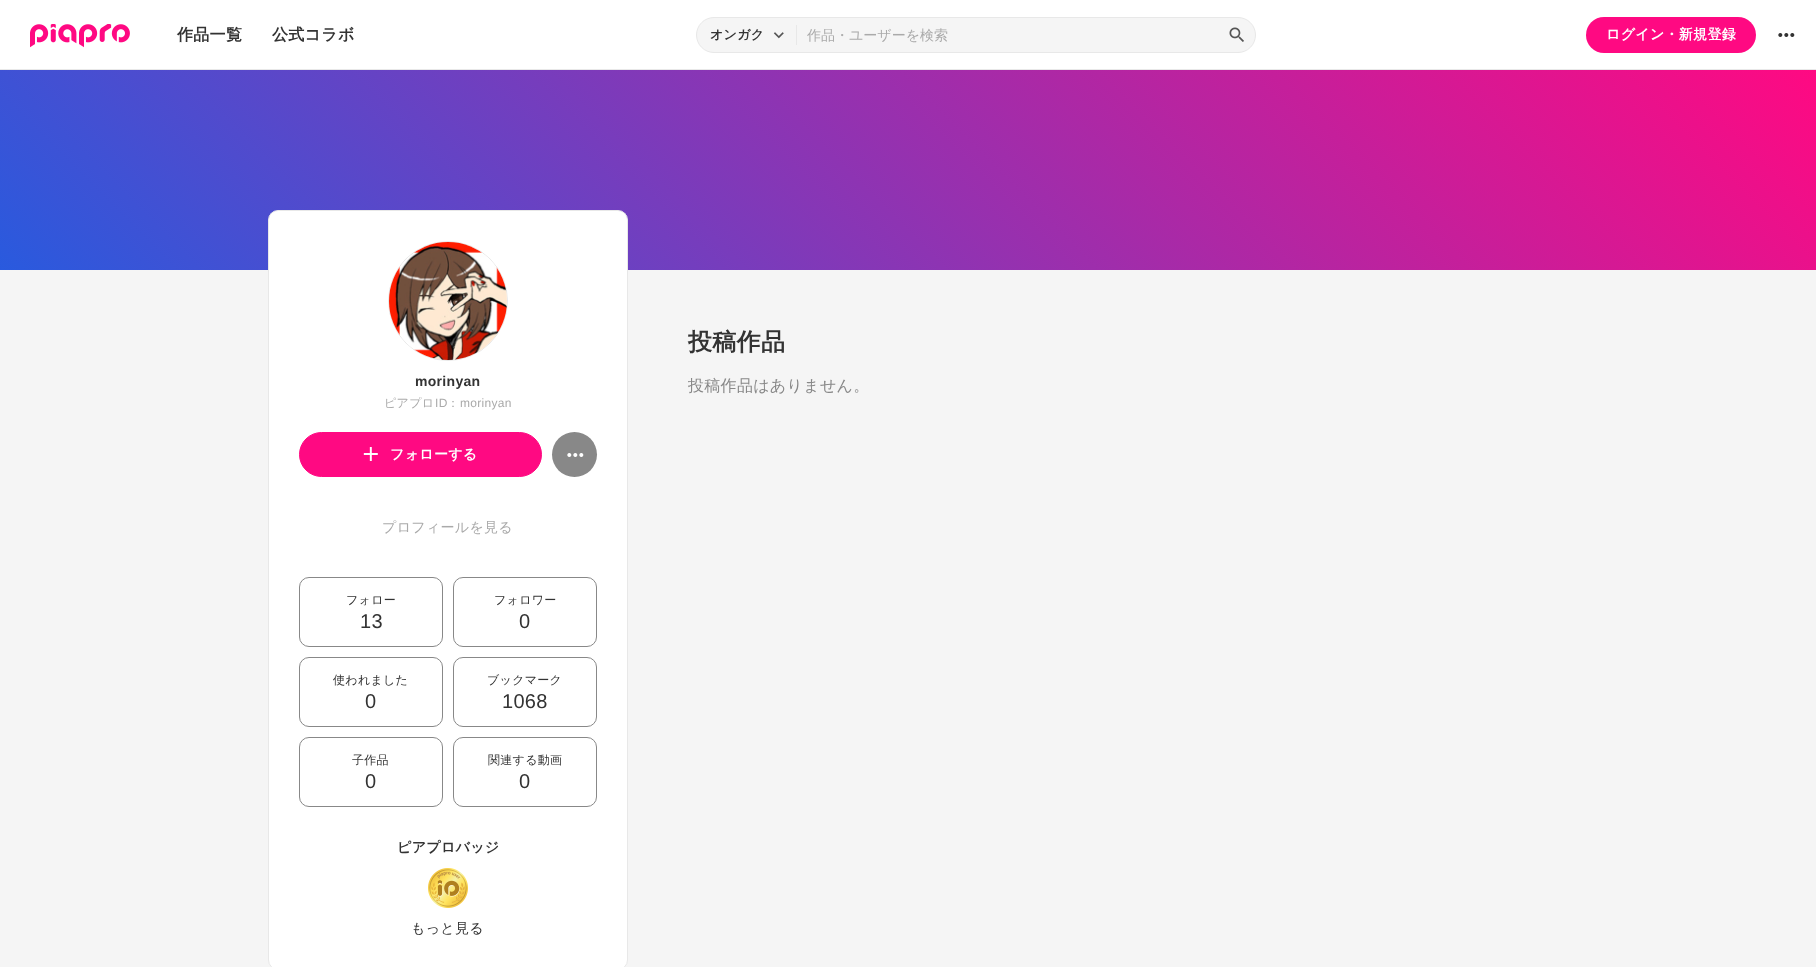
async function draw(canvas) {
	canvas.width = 1816;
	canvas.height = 967;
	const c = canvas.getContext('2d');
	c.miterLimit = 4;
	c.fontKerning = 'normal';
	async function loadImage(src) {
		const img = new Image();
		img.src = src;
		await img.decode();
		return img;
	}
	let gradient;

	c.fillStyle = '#f5f5f5';
	c.fillRect(0, 0, 1816, 967);
	c.fillStyle = '#fff';
	c.fillRect(0, 0, 1816, 69);
	c.fillStyle = '#e8e8e8';
	c.fillRect(0, 69, 1816, 1);
	c.drawImage(await loadImage('img1.png'), 30, 24, 100, 24);
	c.letterSpacing = '0.3px';
	c.font = 'bold 16px WenQuanYi Zen Hei';
	c.fillStyle = '#333';
	c.fillText('作品一覧', 177, 40);
	c.fillText('公式コラボ', 272, 40);
	c.fillStyle = '#f5f5f5';
	c.beginPath();
	c.roundRect(696.5, 17.5, 559, 35, 17.5);
	c.fill();
	c.strokeStyle = '#e8e8e8';
	c.stroke();
	c.font = 'bold 13px WenQuanYi Zen Hei';
	c.fillStyle = '#333';
	c.fillText('オンガク', 710, 39);
	c.drawImage(await loadImage('img2.png'), 773, 32, 11, 7);
	c.fillStyle = '#e8e8e8';
	c.fillRect(796, 25, 1, 20);
	c.letterSpacing = '0px';
	c.font = '500 14px WenQuanYi Zen Hei';
	c.fillStyle = '#aaa';
	c.fillText('作品・ユーザーを検索', 807, 40);
	c.drawImage(await loadImage('img3.png'), 1229, 27, 15, 15);
	c.fillStyle = '#ff0982';
	c.beginPath();
	c.roundRect(1586, 17, 170, 36, 18);
	c.fill();
	c.letterSpacing = '0.3px';
	c.font = 'bold 14px WenQuanYi Zen Hei';
	c.fillStyle = '#fff';
	c.fillText('ログイン・新規登録', 1606, 39);
	c.drawImage(await loadImage('img4.png'), 1778, 33, 17, 4);
	gradient = c.createLinearGradient(404, 674, 1412, -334);
	gradient.addColorStop(0, '#295ade');
	gradient.addColorStop(1, '#ff0982');
	c.fillStyle = gradient;
	c.fillRect(0, 70, 1816, 200);
	c.font = 'bold 24px WenQuanYi Zen Hei';
	c.fillStyle = '#333';
	c.fillText('投稿作品', 688, 350);
	c.font = '500 16px WenQuanYi Zen Hei';
	c.fillStyle = '#888';
	c.fillText('投稿作品はありません。', 688, 391);
	c.fillStyle = '#fff';
	c.beginPath();
	c.roundRect(268.5, 210.5, 359, 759, 9.5);
	c.fill();
	c.stroke();
	c.beginPath();
	c.arc(448, 301, 59.5, 0, 2 * Math.PI);
	c.stroke();
	c.drawImage(await loadImage('img5.png'), 389, 242, 118, 118);
	c.font = 'bold 14px Liberation Sans';
	c.fillStyle = '#333';
	c.fillText('morinyan', 415, 386);
	c.font = '500 12px WenQuanYi Zen Hei';
	c.fillStyle = '#aaa';
	c.fillText('ピアプロ', 384, 407);
	c.font = '12px Liberation Sans';
	c.fillText('ID', 435, 407);
	c.font = '500 12px WenQuanYi Zen Hei';
	c.fillText('：', 447, 407);
	c.font = '12px Liberation Sans';
	c.fillText('morinyan', 460, 407);
	c.fillStyle = '#ff0982';
	c.beginPath();
	c.roundRect(299.5, 432.5, 242, 44, 22);
	c.fill();
	c.strokeStyle = '#ff0982';
	c.stroke();
	c.drawImage(await loadImage('img6.png'), 363, 447, 15, 14);
	c.font = 'bold 14px WenQuanYi Zen Hei';
	c.fillStyle = '#fff';
	c.fillText('フォローする', 390, 459);
	c.fillStyle = '#888';
	c.beginPath();
	c.arc(574.5, 454.5, 22.5, 0, 2 * Math.PI);
	c.fill();
	c.drawImage(await loadImage('img7.png'), 567, 453, 17, 4);
	c.font = '500 14px WenQuanYi Zen Hei';
	c.fillStyle = '#aaa';
	c.fillText('プロフィールを見る', 382, 532);
	c.beginPath();
	c.roundRect(299.5, 577.5, 143, 69, 9.5);
	c.strokeStyle = '#888';
	c.stroke();
	c.font = '500 12px WenQuanYi Zen Hei';
	c.fillStyle = '#333';
	c.fillText('フォロー', 346, 604);
	c.font = '20px Liberation Sans';
	c.fillText('13', 360, 628);
	c.beginPath();
	c.roundRect(453.5, 577.5, 143, 69, 9.5);
	c.stroke();
	c.font = '500 12px WenQuanYi Zen Hei';
	c.fillText('フォロワー', 494, 604);
	c.font = '20px Liberation Sans';
	c.fillText('0', 519, 628);
	c.beginPath();
	c.roundRect(299.5, 657.5, 143, 69, 9.5);
	c.stroke();
	c.font = '500 12px WenQuanYi Zen Hei';
	c.fillText('使われました', 333, 684);
	c.font = '20px Liberation Sans';
	c.fillText('0', 365, 708);
	c.beginPath();
	c.roundRect(453.5, 657.5, 143, 69, 9.5);
	c.stroke();
	c.font = '500 12px WenQuanYi Zen Hei';
	c.fillText('ブックマーク', 487, 684);
	c.font = '20px Liberation Sans';
	c.fillText('1068', 502, 708);
	c.beginPath();
	c.roundRect(299.5, 737.5, 143, 69, 9.5);
	c.stroke();
	c.font = '500 12px WenQuanYi Zen Hei';
	c.fillText('子作品', 352, 764);
	c.font = '20px Liberation Sans';
	c.fillText('0', 365, 788);
	c.beginPath();
	c.roundRect(453.5, 737.5, 143, 69, 9.5);
	c.stroke();
	c.font = '500 12px WenQuanYi Zen Hei';
	c.fillText('関連する動画', 488, 764);
	c.font = '20px Liberation Sans';
	c.fillText('0', 519, 788);
	c.font = 'bold 14px WenQuanYi Zen Hei';
	c.fillText('ピアプロバッジ', 397, 852);
	c.drawImage(await loadImage('img8.png'), 428, 868, 40, 40);
	c.font = '500 14px WenQuanYi Zen Hei';
	c.fillText('もっと見る', 411, 933);
}

draw(document.querySelector('canvas'));
